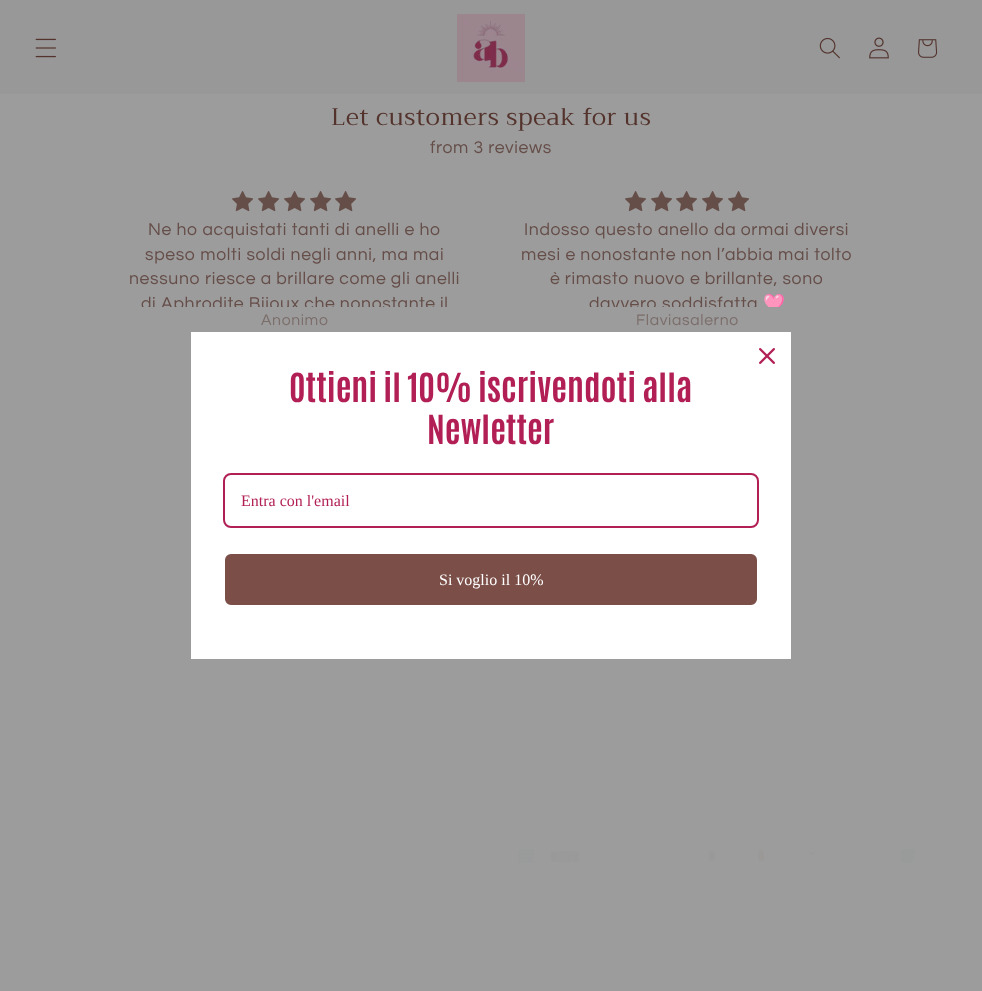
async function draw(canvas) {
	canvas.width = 982;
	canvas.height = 991;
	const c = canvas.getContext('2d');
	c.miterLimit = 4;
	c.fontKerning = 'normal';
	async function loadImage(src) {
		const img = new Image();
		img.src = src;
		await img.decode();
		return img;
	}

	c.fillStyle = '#9c9c9c';
	c.fillRect(0, 0, 982, 991);
	c.fillStyle = '#989899';
	c.fillRect(0, 0, 982, 94);
	c.drawImage(await loadImage('img1.png'), 35, 38, 21, 20);
	c.drawImage(await loadImage('img2.png'), 457, 14, 68, 68);
	c.drawImage(await loadImage('img3.png'), 819, 37, 21, 22);
	c.drawImage(await loadImage('img4.png'), 869, 37, 20, 22);
	c.drawImage(await loadImage('img5.png'), 918, 39, 20, 19);
	c.letterSpacing = '0.6px';
	c.font = '24px Trirong';
	c.fillStyle = '#53332c';
	c.fillText('Let customers speak for us', 331, 125);
	c.letterSpacing = '0.65px';
	c.font = '17.6px Questrial';
	c.fillStyle = '#654d48';
	c.fillText('from 3 reviews', 430, 153);
	c.drawImage(await loadImage('img6.png'), 232, 191, 22, 21);
	c.drawImage(await loadImage('img6.png'), 258, 191, 22, 21);
	c.drawImage(await loadImage('img6.png'), 284, 191, 22, 21);
	c.drawImage(await loadImage('img6.png'), 310, 191, 22, 21);
	c.drawImage(await loadImage('img6.png'), 335, 191, 22, 21);
	for (const [text, x, y] of [
		['Ne ho acquistati tanti di anelli e ho', 148, 235],
		['speso molti soldi negli anni, ma mai', 145, 260],
		['nessuno riesce a brillare come gli anelli', 129, 284],
	]) {
		c.fillText(text, x, y);
	}
	c.save();
	c.beginPath();
	c.rect(123, 187, 344, 120);
	c.clip();
	c.fillText('di Aphrodite Bijoux che nonostante il', 141, 309);
	c.restore();
	c.font = '15.75px Questrial';
	c.fillStyle = '#7b6d6a';
	c.fillText('Anonimo', 261, 325);
	c.drawImage(await loadImage('img6.png'), 625, 191, 22, 21);
	c.drawImage(await loadImage('img6.png'), 651, 191, 22, 21);
	c.drawImage(await loadImage('img6.png'), 676, 191, 22, 21);
	c.drawImage(await loadImage('img6.png'), 702, 191, 22, 21);
	c.drawImage(await loadImage('img6.png'), 728, 191, 22, 21);
	c.font = '17.6px Questrial';
	c.fillStyle = '#654d48';
	for (const [text, x, y] of [
		['Indosso questo anello da ormai diversi', 524, 235],
		['mesi e nonostante non l’abbia mai tolto', 521, 260],
		['è rimasto nuovo e brillante, sono', 550, 284],
	]) {
		c.fillText(text, x, y);
	}
	c.save();
	c.beginPath();
	c.rect(515, 187, 344, 120);
	c.clip();
	c.fillText('davvero soddisfatta', 589, 309);
	c.font = '17.6px Noto Color Emoji';
	c.fillText('🩷', 763, 309);
	c.restore();
	c.font = '15.75px Questrial';
	c.fillStyle = '#7b6d6a';
	c.fillText('Flaviasalerno', 636, 325);
	c.fillStyle = '#fff';
	c.fillRect(191, 332, 600, 327);
	c.drawImage(await loadImage('img7.png'), 759, 348, 16, 16);
	c.letterSpacing = '0px';
	c.font = 'bold 34px Antonio';
	c.fillStyle = '#b21f55';
	c.fillText('Ottieni il 10% iscrivendoti alla', 289, 402);
	c.fillText('Newletter', 427, 444);
	c.beginPath();
	c.roundRect(224, 474, 534, 53, 7);
	c.strokeStyle = '#b21f55';
	c.lineWidth = 2;
	c.stroke();
	c.font = '16px Liberation Serif';
	c.fillText('Entra con l\'email', 241, 506);
	c.fillStyle = '#7b4e48';
	c.beginPath();
	c.roundRect(224, 553, 534, 53, 7);
	c.fill();
	c.strokeStyle = '#fff';
	c.stroke();
	c.fillStyle = '#fff';
	c.fillText('Si voglio il 10%', 439, 585);
	c.drawImage(await loadImage('img8.png'), 518, 849, 16, 14);
	c.drawImage(await loadImage('img9.png'), 551, 851, 28, 11);
	c.drawImage(await loadImage('img10.png'), 709, 851, 6, 10);
	c.drawImage(await loadImage('img11.png'), 758, 850, 6, 11);
	c.drawImage(await loadImage('img12.png'), 809, 852, 5, 3);
	c.drawImage(await loadImage('img13.png'), 901, 849, 14, 14);
}

draw(document.querySelector('canvas'));
